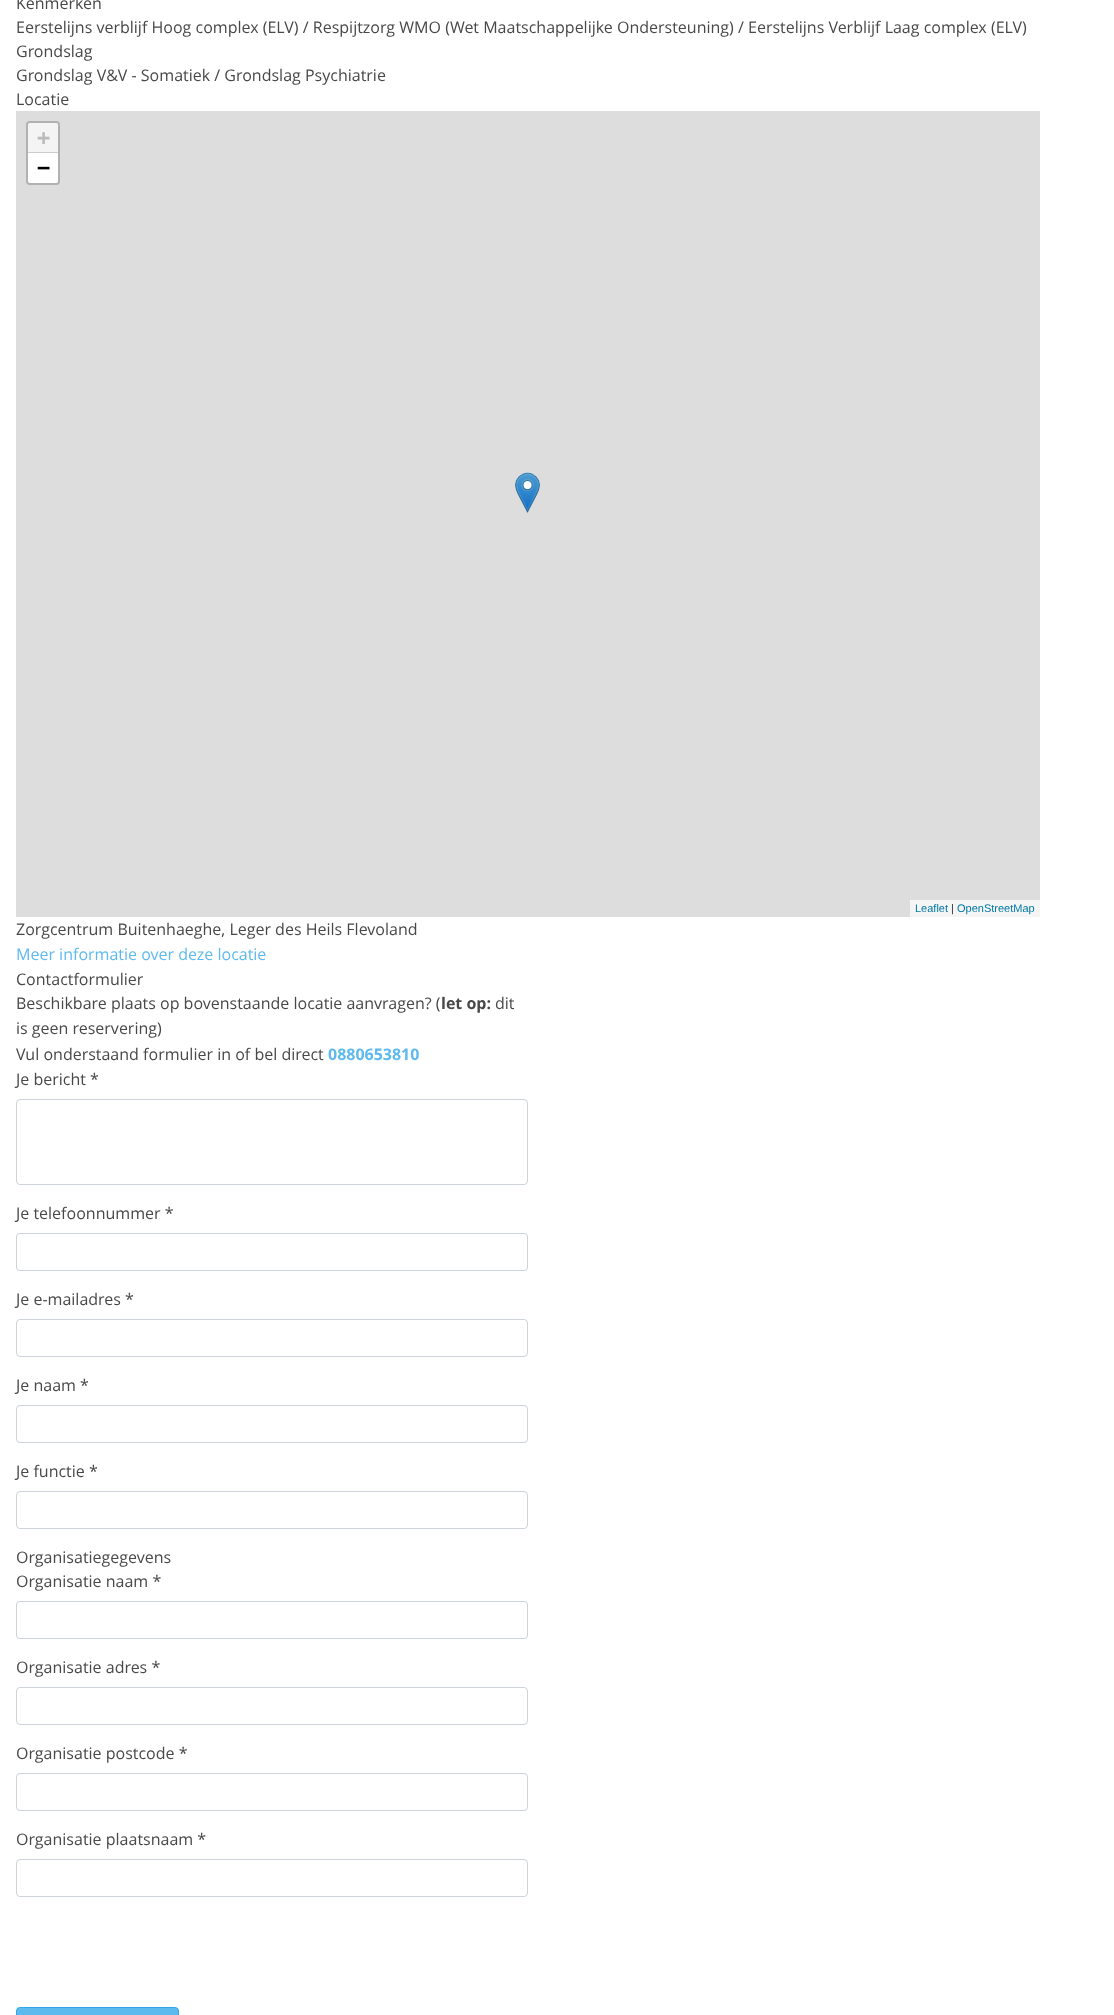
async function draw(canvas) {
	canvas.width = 1114;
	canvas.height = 2015;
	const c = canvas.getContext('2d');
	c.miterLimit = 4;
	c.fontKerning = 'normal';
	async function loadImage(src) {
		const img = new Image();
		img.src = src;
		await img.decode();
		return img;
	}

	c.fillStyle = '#fff';
	c.fillRect(0, 0, 1114, 2015);
	c.font = '16px Open Sans';
	c.fillStyle = '#484848';
	for (const [text, x, y] of [
		['Kenmerken', 16, 9],
		['Eerstelijns verblijf Hoog complex (ELV) / Respijtzorg WMO (Wet Maatschappelijke Ondersteuning) / Eerstelijns Verblijf Laag complex (ELV)', 16, 33],
		['Grondslag', 16, 57],
		['Grondslag V&V - Somatiek / Grondslag Psychiatrie', 16, 81],
		['Locatie', 16, 105],
	]) {
		c.fillText(text, x, y);
	}
	c.fillStyle = '#ddd';
	c.fillRect(16, 111, 1024, 806);
	c.beginPath();
	c.roundRect(27, 122, 32, 62, 3);
	c.strokeStyle = '#b1b1b1';
	c.lineWidth = 2;
	c.stroke();
	c.fillStyle = '#f4f4f4';
	c.beginPath();
	c.roundRect(28, 123, 30, 29, [2, 2, 0, 0]);
	c.fill();
	c.fillStyle = '#ccc';
	c.fillRect(28, 152, 30, 1);
	c.font = 'bold 22px DejaVu Sans Mono';
	c.fillStyle = '#bbb';
	c.fillText('+', 37, 145);
	c.fillStyle = '#fff';
	c.beginPath();
	c.roundRect(28, 153, 30, 30, [0, 0, 2, 2]);
	c.fill();
	c.fillStyle = '#000';
	c.fillText('−', 37, 175);
	c.fillStyle = '#f5f5f5';
	c.fillRect(910, 900, 130, 17);
	c.font = '11px Liberation Sans';
	c.fillStyle = '#0078a8';
	c.fillText('Leaflet', 915, 912);
	c.fillStyle = '#333';
	c.fillText('|', 951, 912);
	c.fillStyle = '#0078a8';
	c.fillText('OpenStreetMap', 957, 912);
	c.drawImage(await loadImage('img1.png'), 515, 472, 25, 41);
	c.font = '16px Open Sans';
	c.fillStyle = '#484848';
	c.fillText('Zorgcentrum Buitenhaeghe, Leger des Heils Flevoland', 16, 935);
	c.fillStyle = '#5dbaee';
	c.fillText('Meer informatie over deze locatie', 16, 960);
	c.fillStyle = '#484848';
	c.fillText('Contactformulier', 16, 985);
	c.fillText('Beschikbare plaats op bovenstaande locatie aanvragen? (', 16, 1009);
	c.font = 'bold 16px Open Sans';
	c.fillText('let op:', 441, 1009);
	c.font = '16px Open Sans';
	for (const [text, x, y] of [
		['dit', 495, 1009],
		['is geen reservering)', 16, 1034],
		['Vul onderstaand formulier in of bel direct', 16, 1060],
	]) {
		c.fillText(text, x, y);
	}
	c.font = 'bold 16px Open Sans';
	c.fillStyle = '#5dbaee';
	c.fillText('0880653810', 328, 1060);
	c.font = '16px Open Sans';
	c.fillStyle = '#484848';
	c.fillText('Je bericht *', 16, 1085);
	c.beginPath();
	c.roundRect(16.5, 1099.5, 511, 85, 3.5);
	c.strokeStyle = '#ced4da';
	c.lineWidth = 1;
	c.stroke();
	c.fillText('Je telefoonnummer *', 16, 1219);
	c.beginPath();
	c.roundRect(16.5, 1233.5, 511, 37, 3.5);
	c.stroke();
	c.fillText('Je e-mailadres *', 16, 1305);
	c.beginPath();
	c.roundRect(16.5, 1319.5, 511, 37, 3.5);
	c.stroke();
	c.fillText('Je naam *', 16, 1391);
	c.beginPath();
	c.roundRect(16.5, 1405.5, 511, 37, 3.5);
	c.stroke();
	c.fillText('Je functie *', 16, 1477);
	c.beginPath();
	c.roundRect(16.5, 1491.5, 511, 37, 3.5);
	c.stroke();
	c.fillText('Organisatiegegevens', 16, 1563);
	c.fillText('Organisatie naam *', 16, 1587);
	c.beginPath();
	c.roundRect(16.5, 1601.5, 511, 37, 3.5);
	c.stroke();
	c.fillText('Organisatie adres *', 16, 1673);
	c.beginPath();
	c.roundRect(16.5, 1687.5, 511, 37, 3.5);
	c.stroke();
	c.fillText('Organisatie postcode *', 16, 1759);
	c.beginPath();
	c.roundRect(16.5, 1773.5, 511, 37, 3.5);
	c.stroke();
	c.fillText('Organisatie plaatsnaam *', 16, 1845);
	c.beginPath();
	c.roundRect(16.5, 1859.5, 511, 37, 3.5);
	c.stroke();
	c.fillStyle = '#5dbaee';
	c.beginPath();
	c.roundRect(16.5, 2007.5, 162, 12, 3.5);
	c.fill();
	c.strokeStyle = '#2fa6e9';
	c.stroke();
}

draw(document.querySelector('canvas'));
